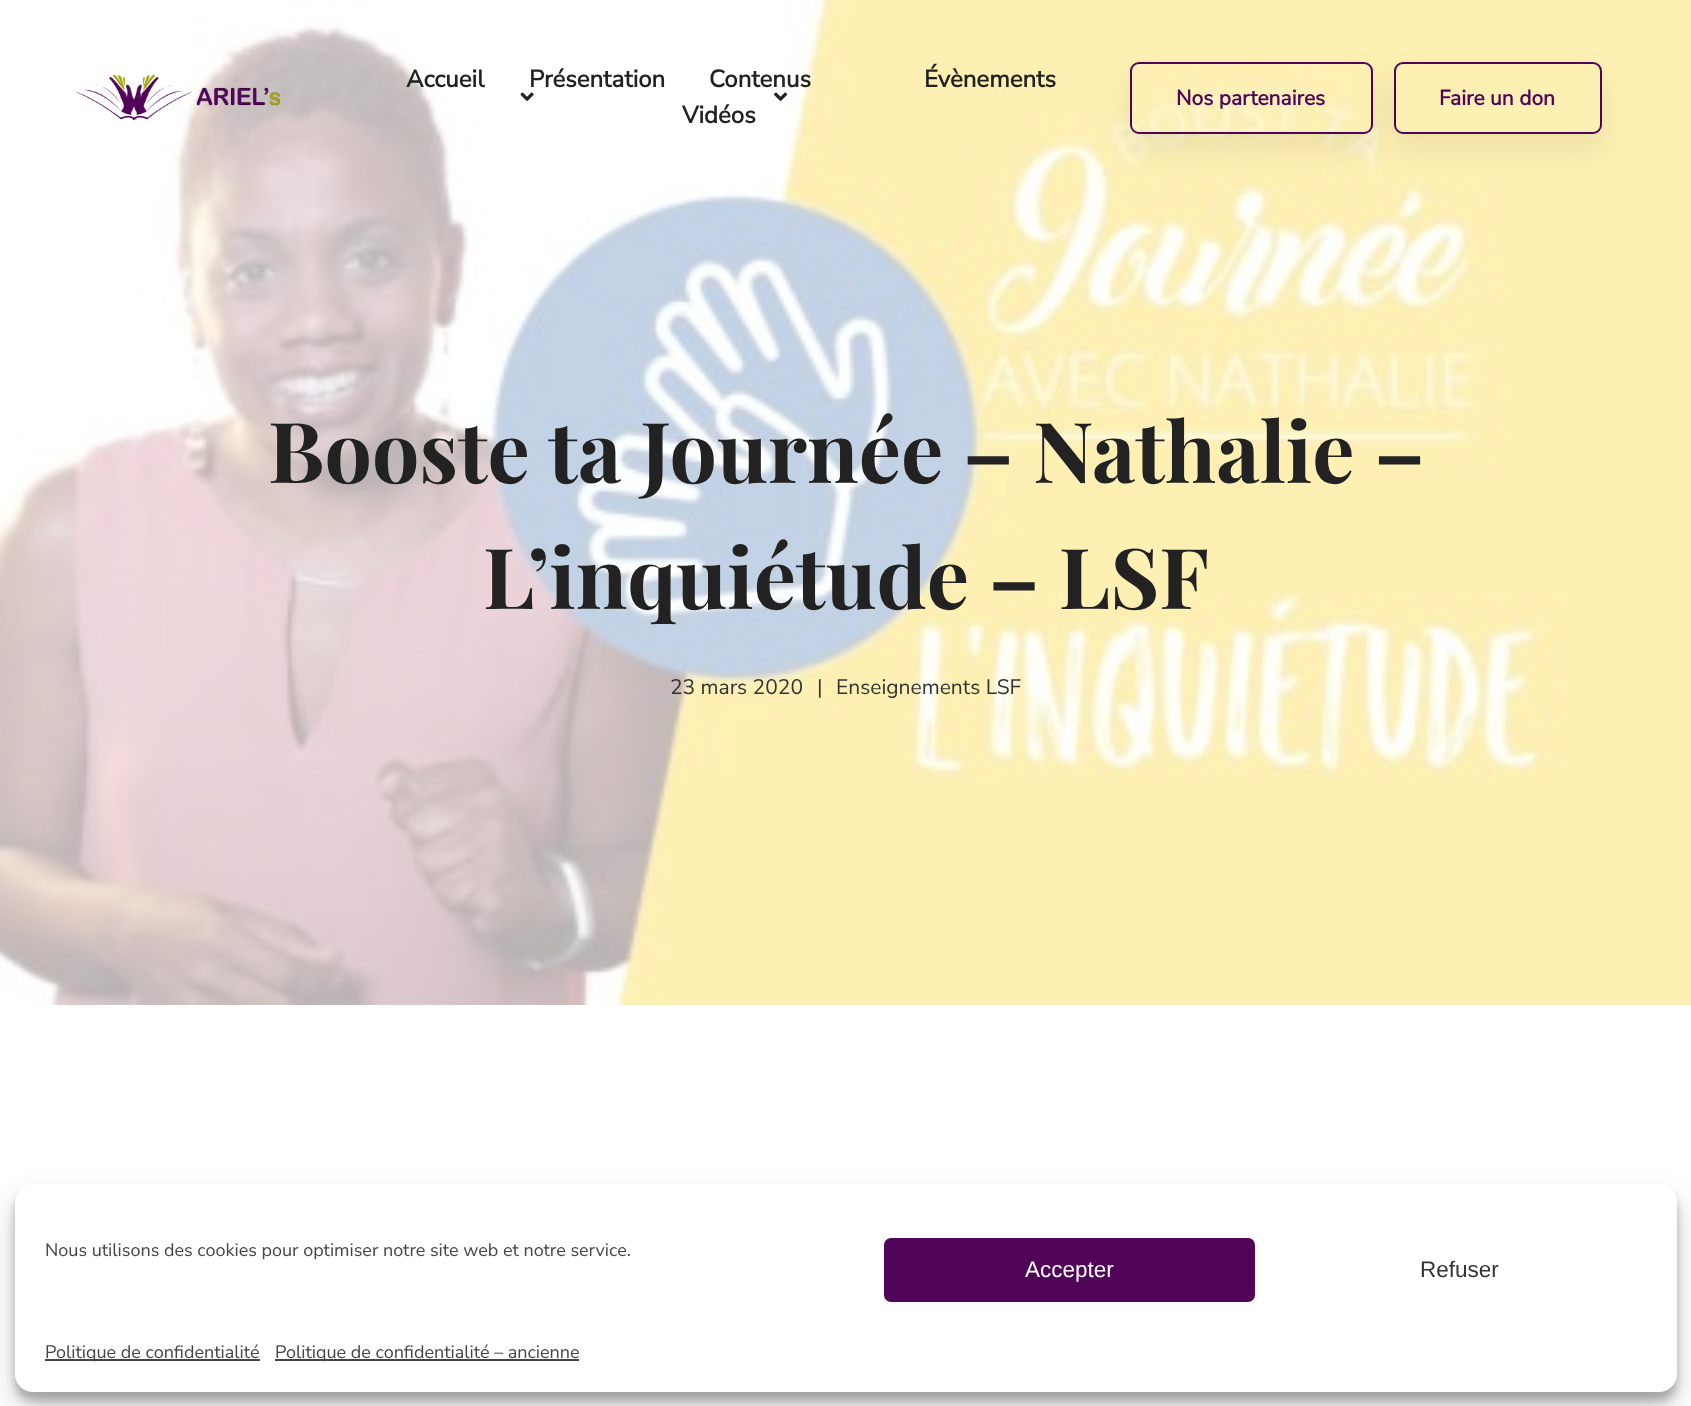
async function draw(canvas) {
	canvas.width = 1691;
	canvas.height = 1406;
	const c = canvas.getContext('2d');
	c.miterLimit = 4;
	c.fontKerning = 'normal';
	async function loadImage(src) {
		const img = new Image();
		img.src = src;
		await img.decode();
		return img;
	}

	c.fillStyle = '#fff';
	c.fillRect(0, 0, 1691, 1406);
	c.drawImage(await loadImage('img4.png'), 0, 0, 1691, 1005);
	c.drawImage(await loadImage('img1.png'), 76, 74, 205, 47);
	c.font = 'bold 24px Nunito Sans';
	c.fillStyle = '#222';
	c.fillText('Accueil', 406, 87);
	c.fillText('Présentation', 529, 87);
	c.drawImage(await loadImage('img2.png'), 520, 92, 14, 9);
	c.fillText('Contenus', 709, 87);
	c.drawImage(await loadImage('img3.png'), 774, 92, 14, 9);
	c.fillText('Vidéos', 682, 123);
	c.fillText('Évènements', 924, 87);
	c.save();
	c.beginPath();
	c.moveTo(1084, 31);
	c.lineTo(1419, 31);
	c.lineTo(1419, 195);
	c.lineTo(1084, 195);
	c.closePath();
	c.moveTo(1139, 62);
	c.lineTo(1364, 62);
	c.bezierCurveTo(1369, 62, 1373, 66, 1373, 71);
	c.lineTo(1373, 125);
	c.bezierCurveTo(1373, 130, 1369, 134, 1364, 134);
	c.lineTo(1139, 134);
	c.bezierCurveTo(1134, 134, 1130, 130, 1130, 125);
	c.lineTo(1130, 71);
	c.bezierCurveTo(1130, 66, 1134, 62, 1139, 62);
	c.closePath();
	c.clip('evenodd');
	c.fillStyle = '#00000012';
	c.filter = 'blur(15px)';
	c.beginPath();
	c.roundRect(1130, 77, 243, 72, 9);
	c.fill();
	c.filter = 'none';
	c.restore();
	c.beginPath();
	c.roundRect(1131, 63, 241, 70, 8);
	c.strokeStyle = '#510359';
	c.lineWidth = 2;
	c.stroke();
	c.font = 'bold 21px Nunito Sans';
	c.fillStyle = '#510359';
	c.fillText('Nos partenaires', 1176, 105);
	c.save();
	c.beginPath();
	c.moveTo(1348, 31);
	c.lineTo(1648, 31);
	c.lineTo(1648, 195);
	c.lineTo(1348, 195);
	c.closePath();
	c.moveTo(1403, 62);
	c.lineTo(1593, 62);
	c.bezierCurveTo(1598, 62, 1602, 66, 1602, 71);
	c.lineTo(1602, 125);
	c.bezierCurveTo(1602, 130, 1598, 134, 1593, 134);
	c.lineTo(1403, 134);
	c.bezierCurveTo(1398, 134, 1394, 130, 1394, 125);
	c.lineTo(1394, 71);
	c.bezierCurveTo(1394, 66, 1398, 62, 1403, 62);
	c.closePath();
	c.clip('evenodd');
	c.fillStyle = '#00000012';
	c.filter = 'blur(15px)';
	c.beginPath();
	c.roundRect(1394, 77, 208, 72, 9);
	c.fill();
	c.filter = 'none';
	c.restore();
	c.beginPath();
	c.roundRect(1395, 63, 206, 70, 8);
	c.stroke();
	c.fillText('Faire un don', 1439, 105);
	c.font = 'bold 84px Playfair Display';
	c.fillStyle = '#222';
	c.fillText('Booste ta Journée – Nathalie –', 268, 483);
	c.fillText('L’inquiétude – LSF', 483, 609);
	c.font = '200 21px Nunito Sans';
	c.fillStyle = '#333';
	for (const [text, x, y] of [
		['23 mars 2020', 670, 694],
		['|', 817, 694],
		['Enseignements LSF', 836, 694],
	]) {
		c.fillText(text, x, y);
	}
	c.fillStyle = '#0000003b';
	c.filter = 'blur(4.5px)';
	c.beginPath();
	c.roundRect(15, 1193, 1662, 208, 18);
	c.fill();
	c.filter = 'none';
	c.fillStyle = '#00000030';
	c.filter = 'blur(15px)';
	c.beginPath();
	c.roundRect(15, 1199, 1662, 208, 18);
	c.fill();
	c.filter = 'none';
	c.fillStyle = '#fff';
	c.beginPath();
	c.roundRect(15, 1184, 1662, 208, 18);
	c.fill();
	c.font = '200 18px Nunito Sans';
	c.fillStyle = '#444';
	c.fillText('Nous utilisons des cookies pour optimiser notre site web et notre service.', 45, 1256);
	c.fillStyle = '#500558';
	c.beginPath();
	c.roundRect(883, 1237, 373, 66, 8);
	c.fill();
	c.strokeStyle = '#fff';
	c.stroke();
	c.font = '22.5px Liberation Sans';
	c.fillStyle = '#fff';
	c.fillText('Accepter', 1025, 1277);
	c.fillStyle = '#333';
	c.fillText('Refuser', 1420, 1277);
	c.fillStyle = '#444';
	c.fillRect(45, 1359, 215, 2);
	c.font = '200 18px Nunito Sans';
	c.fillText('Politique de confidentialité', 45, 1358);
	c.fillRect(275, 1359, 304, 2);
	c.fillText('Politique de confidentialité – ancienne', 275, 1358);
}

draw(document.querySelector('canvas'));
